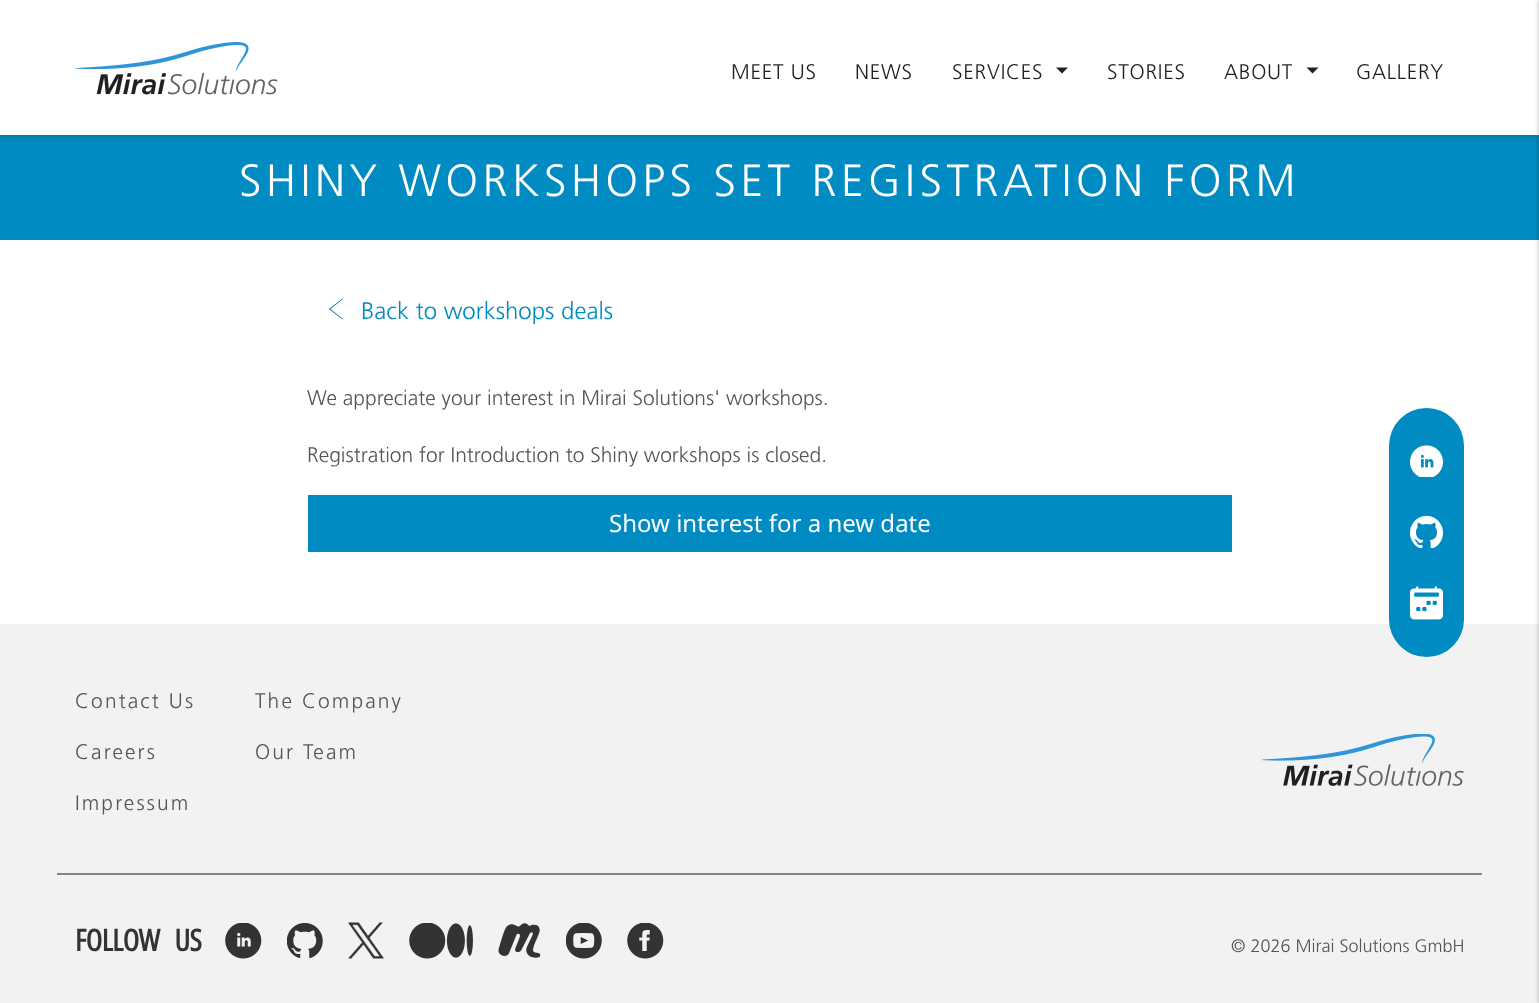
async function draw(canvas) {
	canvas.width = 1539;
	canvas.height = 1003;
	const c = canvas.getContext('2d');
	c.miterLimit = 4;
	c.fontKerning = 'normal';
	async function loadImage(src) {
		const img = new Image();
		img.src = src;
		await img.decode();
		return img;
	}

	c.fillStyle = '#fff';
	c.fillRect(0, 0, 1539, 1003);
	c.fillStyle = '#008cc3';
	c.fillRect(0, 135, 1539, 105);
	c.fillStyle = '#00000024';
	c.filter = 'blur(3px)';
	c.beginPath();
	c.rect(0, 3, 1539, 135);
	c.fill();
	c.filter = 'none';
	c.fillStyle = '#fff';
	c.fillRect(0, 0, 1539, 135);
	c.drawImage(await loadImage('img1.png'), 75, 42, 203, 53);
	c.letterSpacing = '0.75px';
	c.font = '300 21px "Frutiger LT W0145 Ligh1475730"';
	c.fillStyle = '#231f20';
	for (const [text, x, y] of [
		['MEET US', 731, 79],
		['NEWS', 855, 79],
		['SERVICES', 952, 79],
	]) {
		c.fillText(text, x, y);
	}
	c.beginPath();
	c.moveTo(1056, 67.5);
	c.lineTo(1068, 67.5);
	c.lineTo(1062, 73.5);
	c.closePath();
	c.fill();
	c.fillText('STORIES', 1107, 79);
	c.fillText('ABOUT', 1224, 79);
	c.beginPath();
	c.moveTo(1306.5, 67.5);
	c.lineTo(1318.5, 67.5);
	c.lineTo(1312.5, 73.5);
	c.closePath();
	c.fill();
	c.fillText('GALLERY', 1356, 79);
	c.fillStyle = '#f2f2f2';
	c.fillRect(0, 624, 1539, 379);
	c.fillStyle = '#0000004d';
	c.filter = 'blur(2px)';
	c.beginPath();
	c.rect(1539, 0, 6, 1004);
	c.fill();
	c.filter = 'none';
	c.letterSpacing = '4.5px';
	c.font = '300 45px "Frutiger LT W0145 Ligh1475730"';
	c.fillStyle = '#fff';
	c.fillText('SHINY WORKSHOPS SET REGISTRATION FORM', 239, 196);
	c.fillStyle = '#00709c';
	c.beginPath();
	c.moveTo(343, 299);
	c.lineTo(330.5, 309);
	c.lineTo(343, 319);
	c.lineTo(342.5, 319.5);
	c.lineTo(329, 309);
	c.lineTo(342.5, 298.5);
	c.closePath();
	c.fill('evenodd');
	c.letterSpacing = '0px';
	c.font = '300 24px "Frutiger LT W0145 Ligh1475730"';
	c.fillStyle = '#008cc3';
	c.fillText('Back to workshops deals', 361, 319);
	c.font = '300 21px "Frutiger LT W0145 Ligh1475730"';
	c.fillStyle = '#555';
	c.fillText('We appreciate your interest in Mirai Solutions\' workshops.', 307, 405);
	c.fillText('Registration for Introduction to Shiny workshops is closed.', 307, 462);
	c.fillStyle = '#008cc3';
	c.fillRect(308, 495, 924, 57);
	c.font = '24px Noto Sans';
	c.fillStyle = '#fff';
	c.fillText('Show interest for a new date', 609, 532);
	c.fillStyle = '#008cc3';
	c.beginPath();
	c.roundRect(1389, 408, 75, 249, 37.5);
	c.fill();
	c.drawImage(await loadImage('img2.png'), 1410, 445, 33, 32);
	c.drawImage(await loadImage('img3.png'), 1410, 515, 33, 33);
	c.drawImage(await loadImage('img4.png'), 1410, 586, 33, 34);
	c.fillStyle = '#858585';
	c.fillRect(57, 873, 1425, 2);
	c.letterSpacing = '2.1px';
	c.font = '300 21px "Frutiger LT W0145 Ligh1475730"';
	c.fillStyle = '#555';
	for (const [text, x, y] of [
		['Contact Us', 75, 708],
		['Careers', 75, 759],
		['Impressum', 75, 810],
		['The Company', 255, 708],
		['Our Team', 255, 759],
	]) {
		c.fillText(text, x, y);
	}
	c.drawImage(await loadImage('img5.png'), 1262, 734, 202, 52);
	c.letterSpacing = '-0.5px';
	c.wordSpacing = '10px';
	c.font = 'bold 30px Open Sans';
	c.fillStyle = '#333';
	c.fillText('FOLLOW US', 75, 951);
	c.drawImage(await loadImage('img6.png'), 225, 923, 37, 36);
	c.drawImage(await loadImage('img7.png'), 287, 923, 36, 35);
	c.drawImage(await loadImage('img8.png'), 348, 922, 36, 37);
	c.drawImage(await loadImage('img9.png'), 409, 923, 64, 36);
	c.drawImage(await loadImage('img10.png'), 498, 923, 43, 35);
	c.drawImage(await loadImage('img11.png'), 566, 923, 36, 36);
	c.drawImage(await loadImage('img12.png'), 627, 923, 37, 36);
	c.letterSpacing = '0px';
	c.wordSpacing = '0px';
	c.font = '300 18px "Frutiger LT W0145 Ligh1475730"';
	c.fillStyle = '#555';
	c.fillText('© 2026 Mirai Solutions GmbH', 1231, 952);
}

draw(document.querySelector('canvas'));
